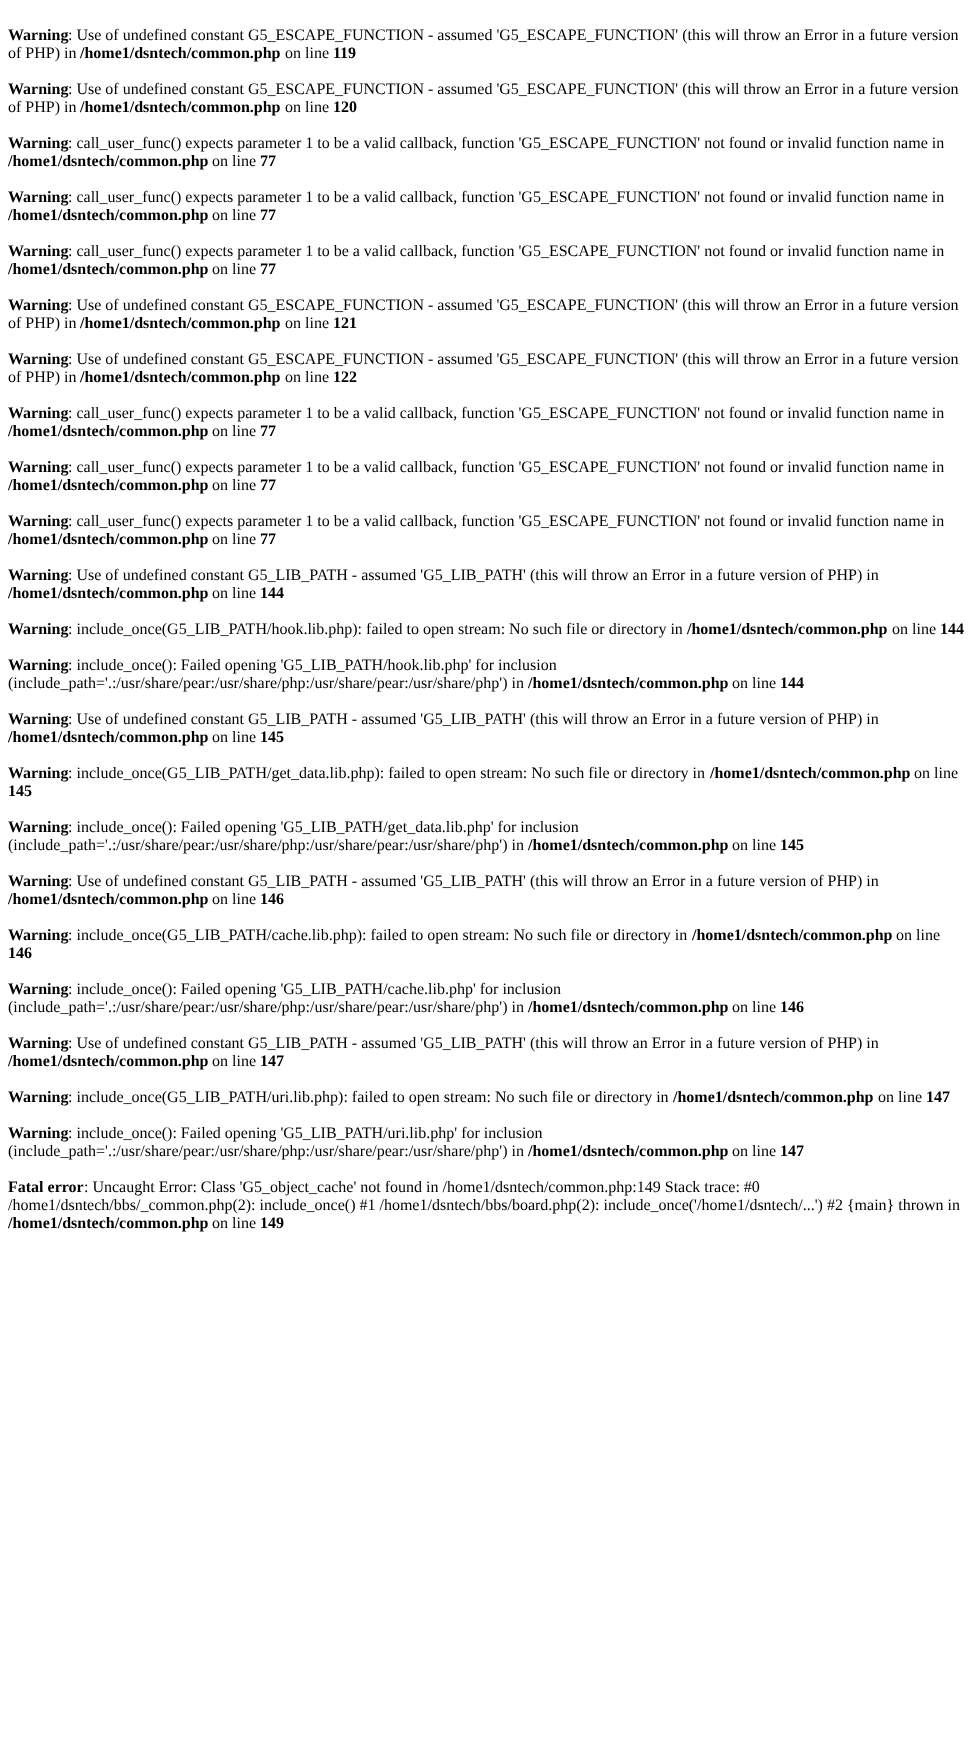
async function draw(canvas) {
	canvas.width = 973;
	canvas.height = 1757;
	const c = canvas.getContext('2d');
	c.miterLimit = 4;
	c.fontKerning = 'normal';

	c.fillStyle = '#fff';
	c.fillRect(0, 0, 973, 1757);
	c.font = 'bold 16px Liberation Serif';
	c.fillStyle = '#000';
	c.fillText('Warning', 8, 40);
	c.font = '16px Liberation Serif';
	c.fillText(': Use of undefined constant G5_ESCAPE_FUNCTION - assumed \'G5_ESCAPE_FUNCTION\' (this will throw an Error in a future version', 68, 40);
	c.fillText('of PHP) in', 8, 58);
	c.font = 'bold 16px Liberation Serif';
	c.fillText('/home1/dsntech/common.php', 80, 58);
	c.font = '16px Liberation Serif';
	c.fillText('on line', 285, 58);
	c.font = 'bold 16px Liberation Serif';
	c.fillText('119', 333, 58);
	c.fillText('Warning', 8, 94);
	c.font = '16px Liberation Serif';
	c.fillText(': Use of undefined constant G5_ESCAPE_FUNCTION - assumed \'G5_ESCAPE_FUNCTION\' (this will throw an Error in a future version', 68, 94);
	c.fillText('of PHP) in', 8, 112);
	c.font = 'bold 16px Liberation Serif';
	c.fillText('/home1/dsntech/common.php', 80, 112);
	c.font = '16px Liberation Serif';
	c.fillText('on line', 285, 112);
	c.font = 'bold 16px Liberation Serif';
	c.fillText('120', 333, 112);
	c.fillText('Warning', 8, 148);
	c.font = '16px Liberation Serif';
	c.fillText(': call_user_func() expects parameter 1 to be a valid callback, function \'G5_ESCAPE_FUNCTION\' not found or invalid function name in', 68, 148);
	c.font = 'bold 16px Liberation Serif';
	c.fillText('/home1/dsntech/common.php', 8, 166);
	c.font = '16px Liberation Serif';
	c.fillText('on line', 212, 166);
	c.font = 'bold 16px Liberation Serif';
	c.fillText('77', 260, 166);
	c.fillText('Warning', 8, 202);
	c.font = '16px Liberation Serif';
	c.fillText(': call_user_func() expects parameter 1 to be a valid callback, function \'G5_ESCAPE_FUNCTION\' not found or invalid function name in', 68, 202);
	c.font = 'bold 16px Liberation Serif';
	c.fillText('/home1/dsntech/common.php', 8, 220);
	c.font = '16px Liberation Serif';
	c.fillText('on line', 212, 220);
	c.font = 'bold 16px Liberation Serif';
	c.fillText('77', 260, 220);
	c.fillText('Warning', 8, 256);
	c.font = '16px Liberation Serif';
	c.fillText(': call_user_func() expects parameter 1 to be a valid callback, function \'G5_ESCAPE_FUNCTION\' not found or invalid function name in', 68, 256);
	c.font = 'bold 16px Liberation Serif';
	c.fillText('/home1/dsntech/common.php', 8, 274);
	c.font = '16px Liberation Serif';
	c.fillText('on line', 212, 274);
	c.font = 'bold 16px Liberation Serif';
	c.fillText('77', 260, 274);
	c.fillText('Warning', 8, 310);
	c.font = '16px Liberation Serif';
	c.fillText(': Use of undefined constant G5_ESCAPE_FUNCTION - assumed \'G5_ESCAPE_FUNCTION\' (this will throw an Error in a future version', 68, 310);
	c.fillText('of PHP) in', 8, 328);
	c.font = 'bold 16px Liberation Serif';
	c.fillText('/home1/dsntech/common.php', 80, 328);
	c.font = '16px Liberation Serif';
	c.fillText('on line', 285, 328);
	c.font = 'bold 16px Liberation Serif';
	c.fillText('121', 333, 328);
	c.fillText('Warning', 8, 364);
	c.font = '16px Liberation Serif';
	c.fillText(': Use of undefined constant G5_ESCAPE_FUNCTION - assumed \'G5_ESCAPE_FUNCTION\' (this will throw an Error in a future version', 68, 364);
	c.fillText('of PHP) in', 8, 382);
	c.font = 'bold 16px Liberation Serif';
	c.fillText('/home1/dsntech/common.php', 80, 382);
	c.font = '16px Liberation Serif';
	c.fillText('on line', 285, 382);
	c.font = 'bold 16px Liberation Serif';
	c.fillText('122', 333, 382);
	c.fillText('Warning', 8, 418);
	c.font = '16px Liberation Serif';
	c.fillText(': call_user_func() expects parameter 1 to be a valid callback, function \'G5_ESCAPE_FUNCTION\' not found or invalid function name in', 68, 418);
	c.font = 'bold 16px Liberation Serif';
	c.fillText('/home1/dsntech/common.php', 8, 436);
	c.font = '16px Liberation Serif';
	c.fillText('on line', 212, 436);
	c.font = 'bold 16px Liberation Serif';
	c.fillText('77', 260, 436);
	c.fillText('Warning', 8, 472);
	c.font = '16px Liberation Serif';
	c.fillText(': call_user_func() expects parameter 1 to be a valid callback, function \'G5_ESCAPE_FUNCTION\' not found or invalid function name in', 68, 472);
	c.font = 'bold 16px Liberation Serif';
	c.fillText('/home1/dsntech/common.php', 8, 490);
	c.font = '16px Liberation Serif';
	c.fillText('on line', 212, 490);
	c.font = 'bold 16px Liberation Serif';
	c.fillText('77', 260, 490);
	c.fillText('Warning', 8, 526);
	c.font = '16px Liberation Serif';
	c.fillText(': call_user_func() expects parameter 1 to be a valid callback, function \'G5_ESCAPE_FUNCTION\' not found or invalid function name in', 68, 526);
	c.font = 'bold 16px Liberation Serif';
	c.fillText('/home1/dsntech/common.php', 8, 544);
	c.font = '16px Liberation Serif';
	c.fillText('on line', 212, 544);
	c.font = 'bold 16px Liberation Serif';
	c.fillText('77', 260, 544);
	c.fillText('Warning', 8, 580);
	c.font = '16px Liberation Serif';
	c.fillText(': Use of undefined constant G5_LIB_PATH - assumed \'G5_LIB_PATH\' (this will throw an Error in a future version of PHP) in', 68, 580);
	c.font = 'bold 16px Liberation Serif';
	c.fillText('/home1/dsntech/common.php', 8, 598);
	c.font = '16px Liberation Serif';
	c.fillText('on line', 212, 598);
	c.font = 'bold 16px Liberation Serif';
	c.fillText('144', 260, 598);
	c.fillText('Warning', 8, 634);
	c.font = '16px Liberation Serif';
	c.fillText(': include_once(G5_LIB_PATH/hook.lib.php): failed to open stream: No such file or directory in', 68, 634);
	c.font = 'bold 16px Liberation Serif';
	c.fillText('/home1/dsntech/common.php', 687, 634);
	c.font = '16px Liberation Serif';
	c.fillText('on line', 892, 634);
	c.font = 'bold 16px Liberation Serif';
	c.fillText('144', 940, 634);
	c.fillText('Warning', 8, 670);
	c.font = '16px Liberation Serif';
	c.fillText(': include_once(): Failed opening \'G5_LIB_PATH/hook.lib.php\' for inclusion', 68, 670);
	c.fillText('(include_path=\'.:/usr/share/pear:/usr/share/php:/usr/share/pear:/usr/share/php\') in', 8, 688);
	c.font = 'bold 16px Liberation Serif';
	c.fillText('/home1/dsntech/common.php', 528, 688);
	c.font = '16px Liberation Serif';
	c.fillText('on line', 732, 688);
	c.font = 'bold 16px Liberation Serif';
	c.fillText('144', 780, 688);
	c.fillText('Warning', 8, 724);
	c.font = '16px Liberation Serif';
	c.fillText(': Use of undefined constant G5_LIB_PATH - assumed \'G5_LIB_PATH\' (this will throw an Error in a future version of PHP) in', 68, 724);
	c.font = 'bold 16px Liberation Serif';
	c.fillText('/home1/dsntech/common.php', 8, 742);
	c.font = '16px Liberation Serif';
	c.fillText('on line', 212, 742);
	c.font = 'bold 16px Liberation Serif';
	c.fillText('145', 260, 742);
	c.fillText('Warning', 8, 778);
	c.font = '16px Liberation Serif';
	c.fillText(': include_once(G5_LIB_PATH/get_data.lib.php): failed to open stream: No such file or directory in', 68, 778);
	c.font = 'bold 16px Liberation Serif';
	c.fillText('/home1/dsntech/common.php', 710, 778);
	c.font = '16px Liberation Serif';
	c.fillText('on line', 914, 778);
	c.font = 'bold 16px Liberation Serif';
	c.fillText('145', 8, 796);
	c.fillText('Warning', 8, 832);
	c.font = '16px Liberation Serif';
	c.fillText(': include_once(): Failed opening \'G5_LIB_PATH/get_data.lib.php\' for inclusion', 68, 832);
	c.fillText('(include_path=\'.:/usr/share/pear:/usr/share/php:/usr/share/pear:/usr/share/php\') in', 8, 850);
	c.font = 'bold 16px Liberation Serif';
	c.fillText('/home1/dsntech/common.php', 528, 850);
	c.font = '16px Liberation Serif';
	c.fillText('on line', 732, 850);
	c.font = 'bold 16px Liberation Serif';
	c.fillText('145', 780, 850);
	c.fillText('Warning', 8, 886);
	c.font = '16px Liberation Serif';
	c.fillText(': Use of undefined constant G5_LIB_PATH - assumed \'G5_LIB_PATH\' (this will throw an Error in a future version of PHP) in', 68, 886);
	c.font = 'bold 16px Liberation Serif';
	c.fillText('/home1/dsntech/common.php', 8, 904);
	c.font = '16px Liberation Serif';
	c.fillText('on line', 212, 904);
	c.font = 'bold 16px Liberation Serif';
	c.fillText('146', 260, 904);
	c.fillText('Warning', 8, 940);
	c.font = '16px Liberation Serif';
	c.fillText(': include_once(G5_LIB_PATH/cache.lib.php): failed to open stream: No such file or directory in', 68, 940);
	c.font = 'bold 16px Liberation Serif';
	c.fillText('/home1/dsntech/common.php', 692, 940);
	c.font = '16px Liberation Serif';
	c.fillText('on line', 896, 940);
	c.font = 'bold 16px Liberation Serif';
	c.fillText('146', 8, 958);
	c.fillText('Warning', 8, 994);
	c.font = '16px Liberation Serif';
	c.fillText(': include_once(): Failed opening \'G5_LIB_PATH/cache.lib.php\' for inclusion', 68, 994);
	c.fillText('(include_path=\'.:/usr/share/pear:/usr/share/php:/usr/share/pear:/usr/share/php\') in', 8, 1012);
	c.font = 'bold 16px Liberation Serif';
	c.fillText('/home1/dsntech/common.php', 528, 1012);
	c.font = '16px Liberation Serif';
	c.fillText('on line', 732, 1012);
	c.font = 'bold 16px Liberation Serif';
	c.fillText('146', 780, 1012);
	c.fillText('Warning', 8, 1048);
	c.font = '16px Liberation Serif';
	c.fillText(': Use of undefined constant G5_LIB_PATH - assumed \'G5_LIB_PATH\' (this will throw an Error in a future version of PHP) in', 68, 1048);
	c.font = 'bold 16px Liberation Serif';
	c.fillText('/home1/dsntech/common.php', 8, 1066);
	c.font = '16px Liberation Serif';
	c.fillText('on line', 212, 1066);
	c.font = 'bold 16px Liberation Serif';
	c.fillText('147', 260, 1066);
	c.fillText('Warning', 8, 1102);
	c.font = '16px Liberation Serif';
	c.fillText(': include_once(G5_LIB_PATH/uri.lib.php): failed to open stream: No such file or directory in', 68, 1102);
	c.font = 'bold 16px Liberation Serif';
	c.fillText('/home1/dsntech/common.php', 673, 1102);
	c.font = '16px Liberation Serif';
	c.fillText('on line', 878, 1102);
	c.font = 'bold 16px Liberation Serif';
	c.fillText('147', 926, 1102);
	c.fillText('Warning', 8, 1138);
	c.font = '16px Liberation Serif';
	c.fillText(': include_once(): Failed opening \'G5_LIB_PATH/uri.lib.php\' for inclusion', 68, 1138);
	c.fillText('(include_path=\'.:/usr/share/pear:/usr/share/php:/usr/share/pear:/usr/share/php\') in', 8, 1156);
	c.font = 'bold 16px Liberation Serif';
	c.fillText('/home1/dsntech/common.php', 528, 1156);
	c.font = '16px Liberation Serif';
	c.fillText('on line', 732, 1156);
	c.font = 'bold 16px Liberation Serif';
	c.fillText('147', 780, 1156);
	c.fillText('Fatal error', 8, 1192);
	c.font = '16px Liberation Serif';
	c.fillText(': Uncaught Error: Class \'G5_object_cache\' not found in /home1/dsntech/common.php:149 Stack trace: #0', 84, 1192);
	c.fillText('/home1/dsntech/bbs/_common.php(2): include_once() #1 /home1/dsntech/bbs/board.php(2): include_once(\'/home1/dsntech/...\') #2 {main} thrown in', 8, 1210);
	c.font = 'bold 16px Liberation Serif';
	c.fillText('/home1/dsntech/common.php', 8, 1228);
	c.font = '16px Liberation Serif';
	c.fillText('on line', 212, 1228);
	c.font = 'bold 16px Liberation Serif';
	c.fillText('149', 260, 1228);
}

draw(document.querySelector('canvas'));
